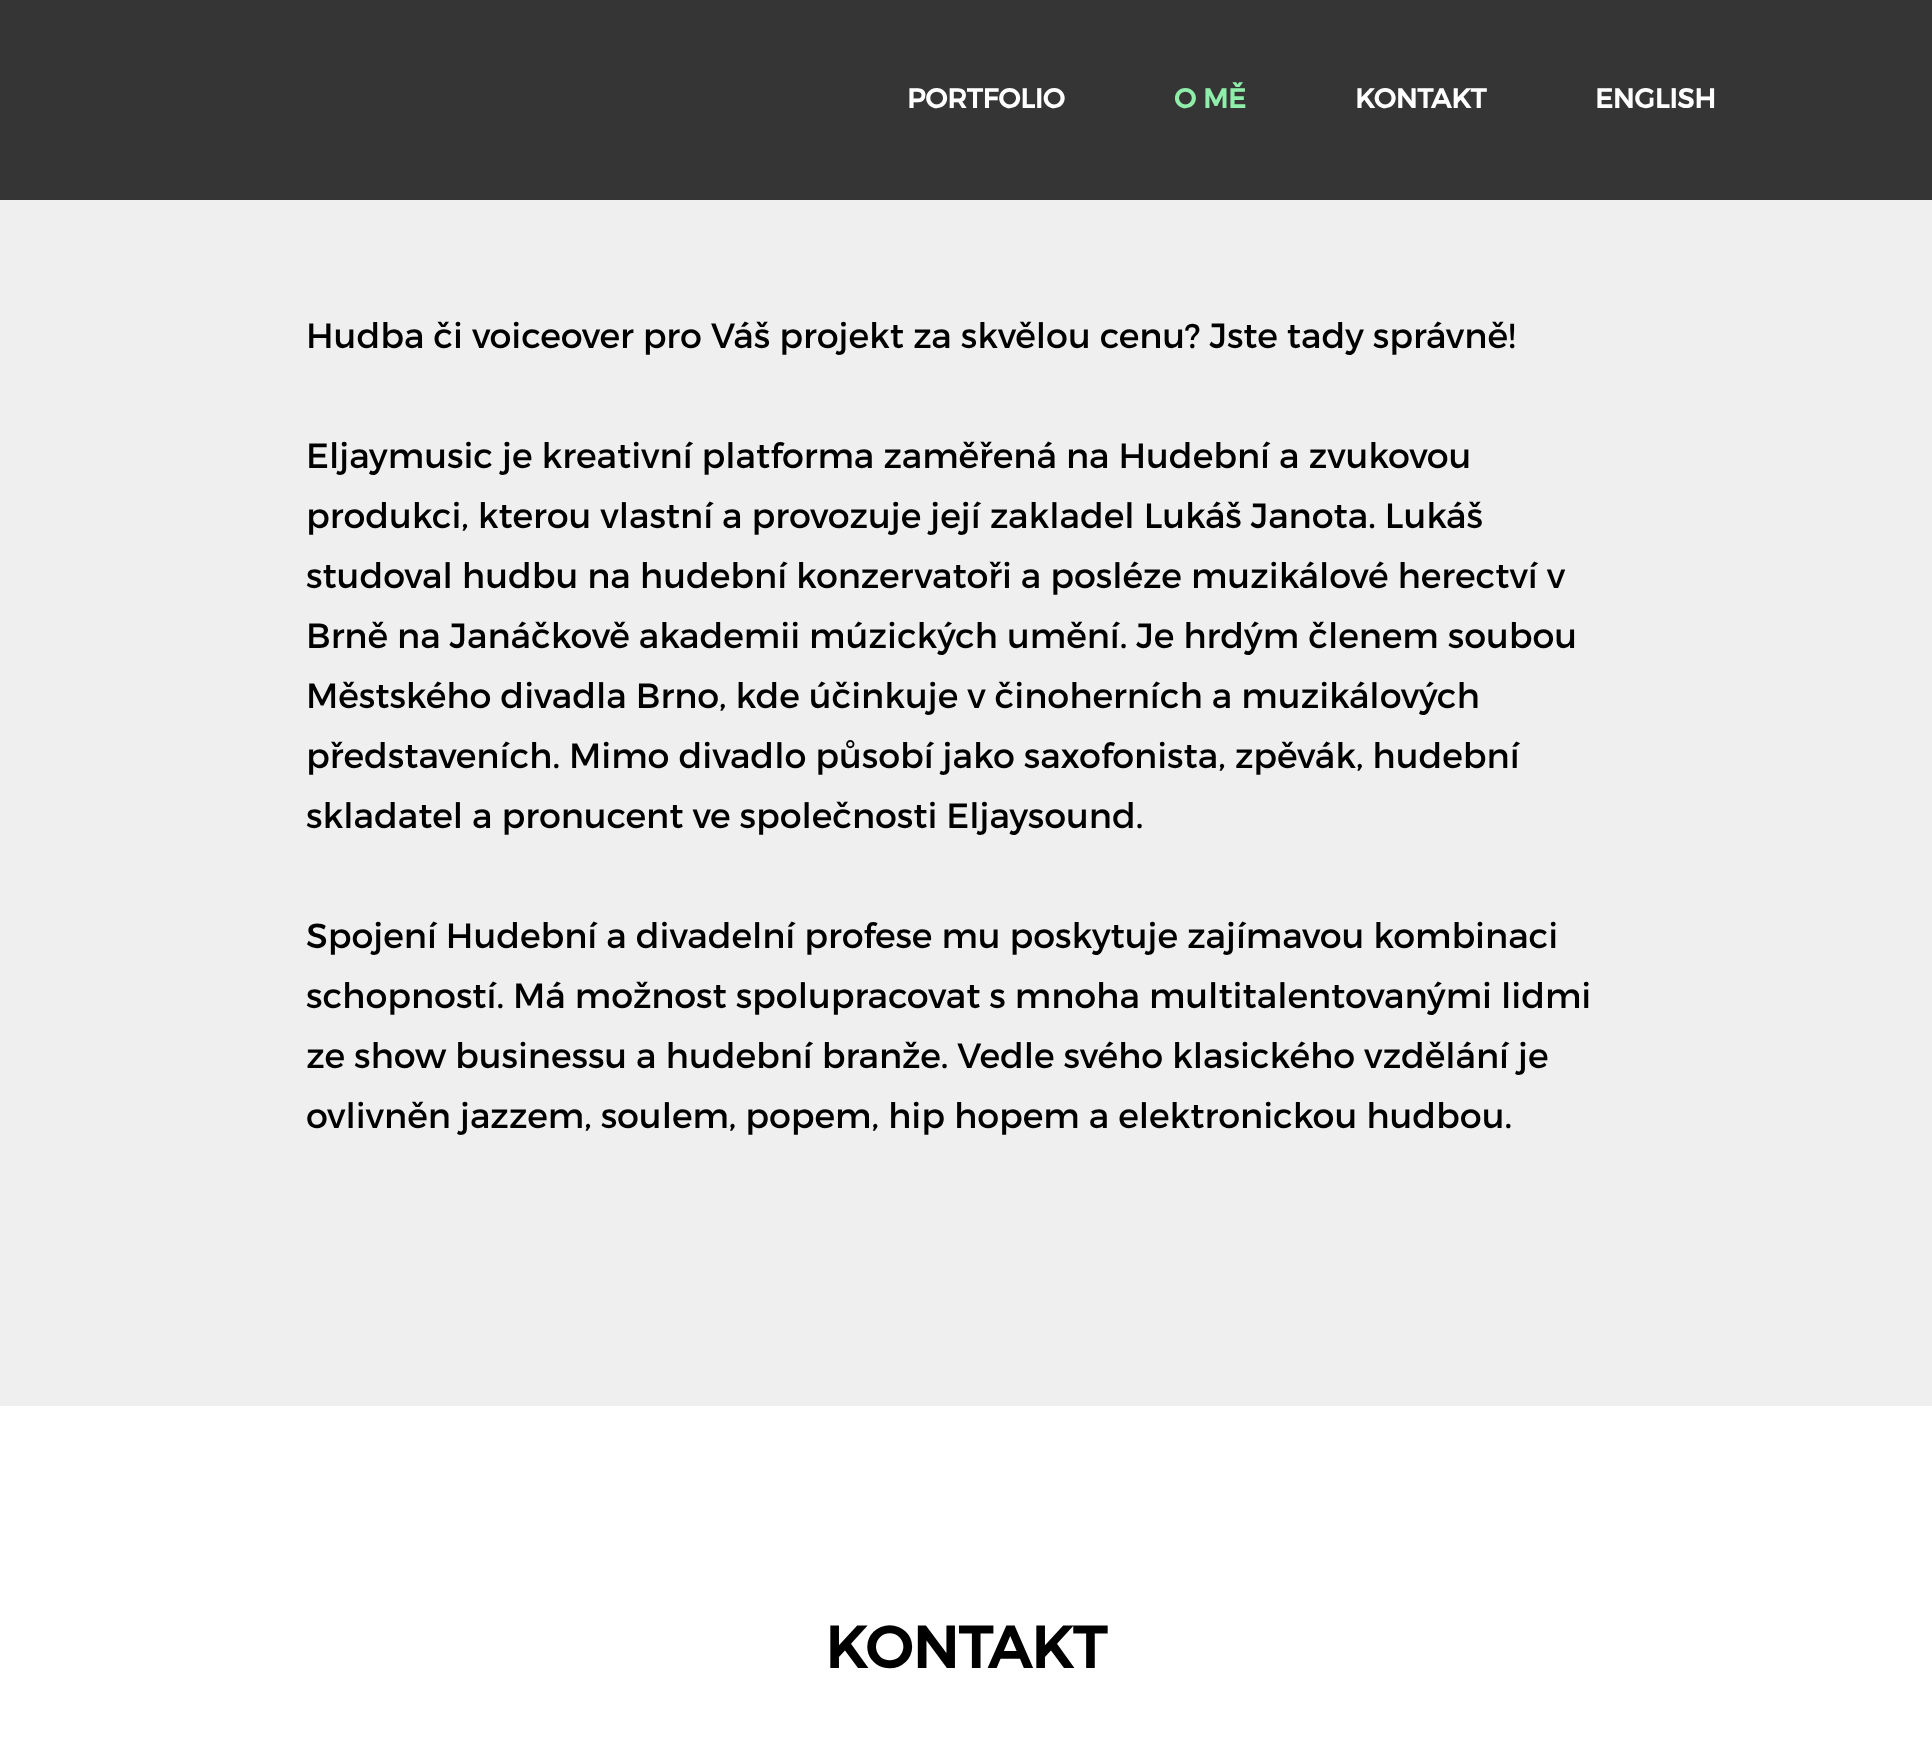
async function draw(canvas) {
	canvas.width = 1932;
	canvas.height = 1744;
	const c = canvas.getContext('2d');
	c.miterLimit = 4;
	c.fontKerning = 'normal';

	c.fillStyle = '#fff';
	c.fillRect(0, 0, 1932, 1744);
	c.fillStyle = '#353535';
	c.fillRect(0, 0, 1932, 200);
	c.font = 'bold 28px Montserrat';
	c.fillStyle = '#fff';
	c.fillText('PORTFOLIO', 907, 108);
	c.fillStyle = '#90eeab';
	c.fillText('O MĚ', 1174, 108);
	c.fillStyle = '#fff';
	c.fillText('KONTAKT', 1355, 108);
	c.fillText('ENGLISH', 1595, 108);
	c.fillStyle = '#f0efef';
	c.fillRect(0, 200, 1932, 1206);
	c.font = '36px Montserrat';
	c.fillStyle = '#000';
	for (const [text, x, y] of [
		['Hudba či voiceover pro Váš projekt za skvělou cenu? Jste tady správně!', 306, 348],
		['Eljaymusic je kreativní platforma zaměřená na Hudební a zvukovou', 306, 468],
		['produkci, kterou vlastní a provozuje její zakladel Lukáš Janota. Lukáš', 306, 528],
		['studoval hudbu na hudební konzervatoři a posléze muzikálové herectví v', 306, 588],
		['Brně na Janáčkově akademii múzických umění. Je hrdým členem soubou', 306, 648],
		['Městského divadla Brno, kde účinkuje v činoherních a muzikálových', 306, 708],
		['představeních. Mimo divadlo působí jako saxofonista, zpěvák, hudební', 306, 768],
		['skladatel a pronucent ve společnosti Eljaysound.', 306, 828],
		['Spojení Hudební a divadelní profese mu poskytuje zajímavou kombinaci', 306, 948],
		['schopností. Má možnost spolupracovat s mnoha multitalentovanými lidmi', 306, 1008],
		['ze show businessu a hudební branže. Vedle svého klasického vzdělání je', 306, 1068],
		['ovlivněn jazzem, soulem, popem, hip hopem a elektronickou hudbou.', 306, 1128],
	]) {
		c.fillText(text, x, y);
	}
	c.font = 'bold 60px Montserrat';
	c.fillText('KONTAKT', 825, 1668);
}

draw(document.querySelector('canvas'));
